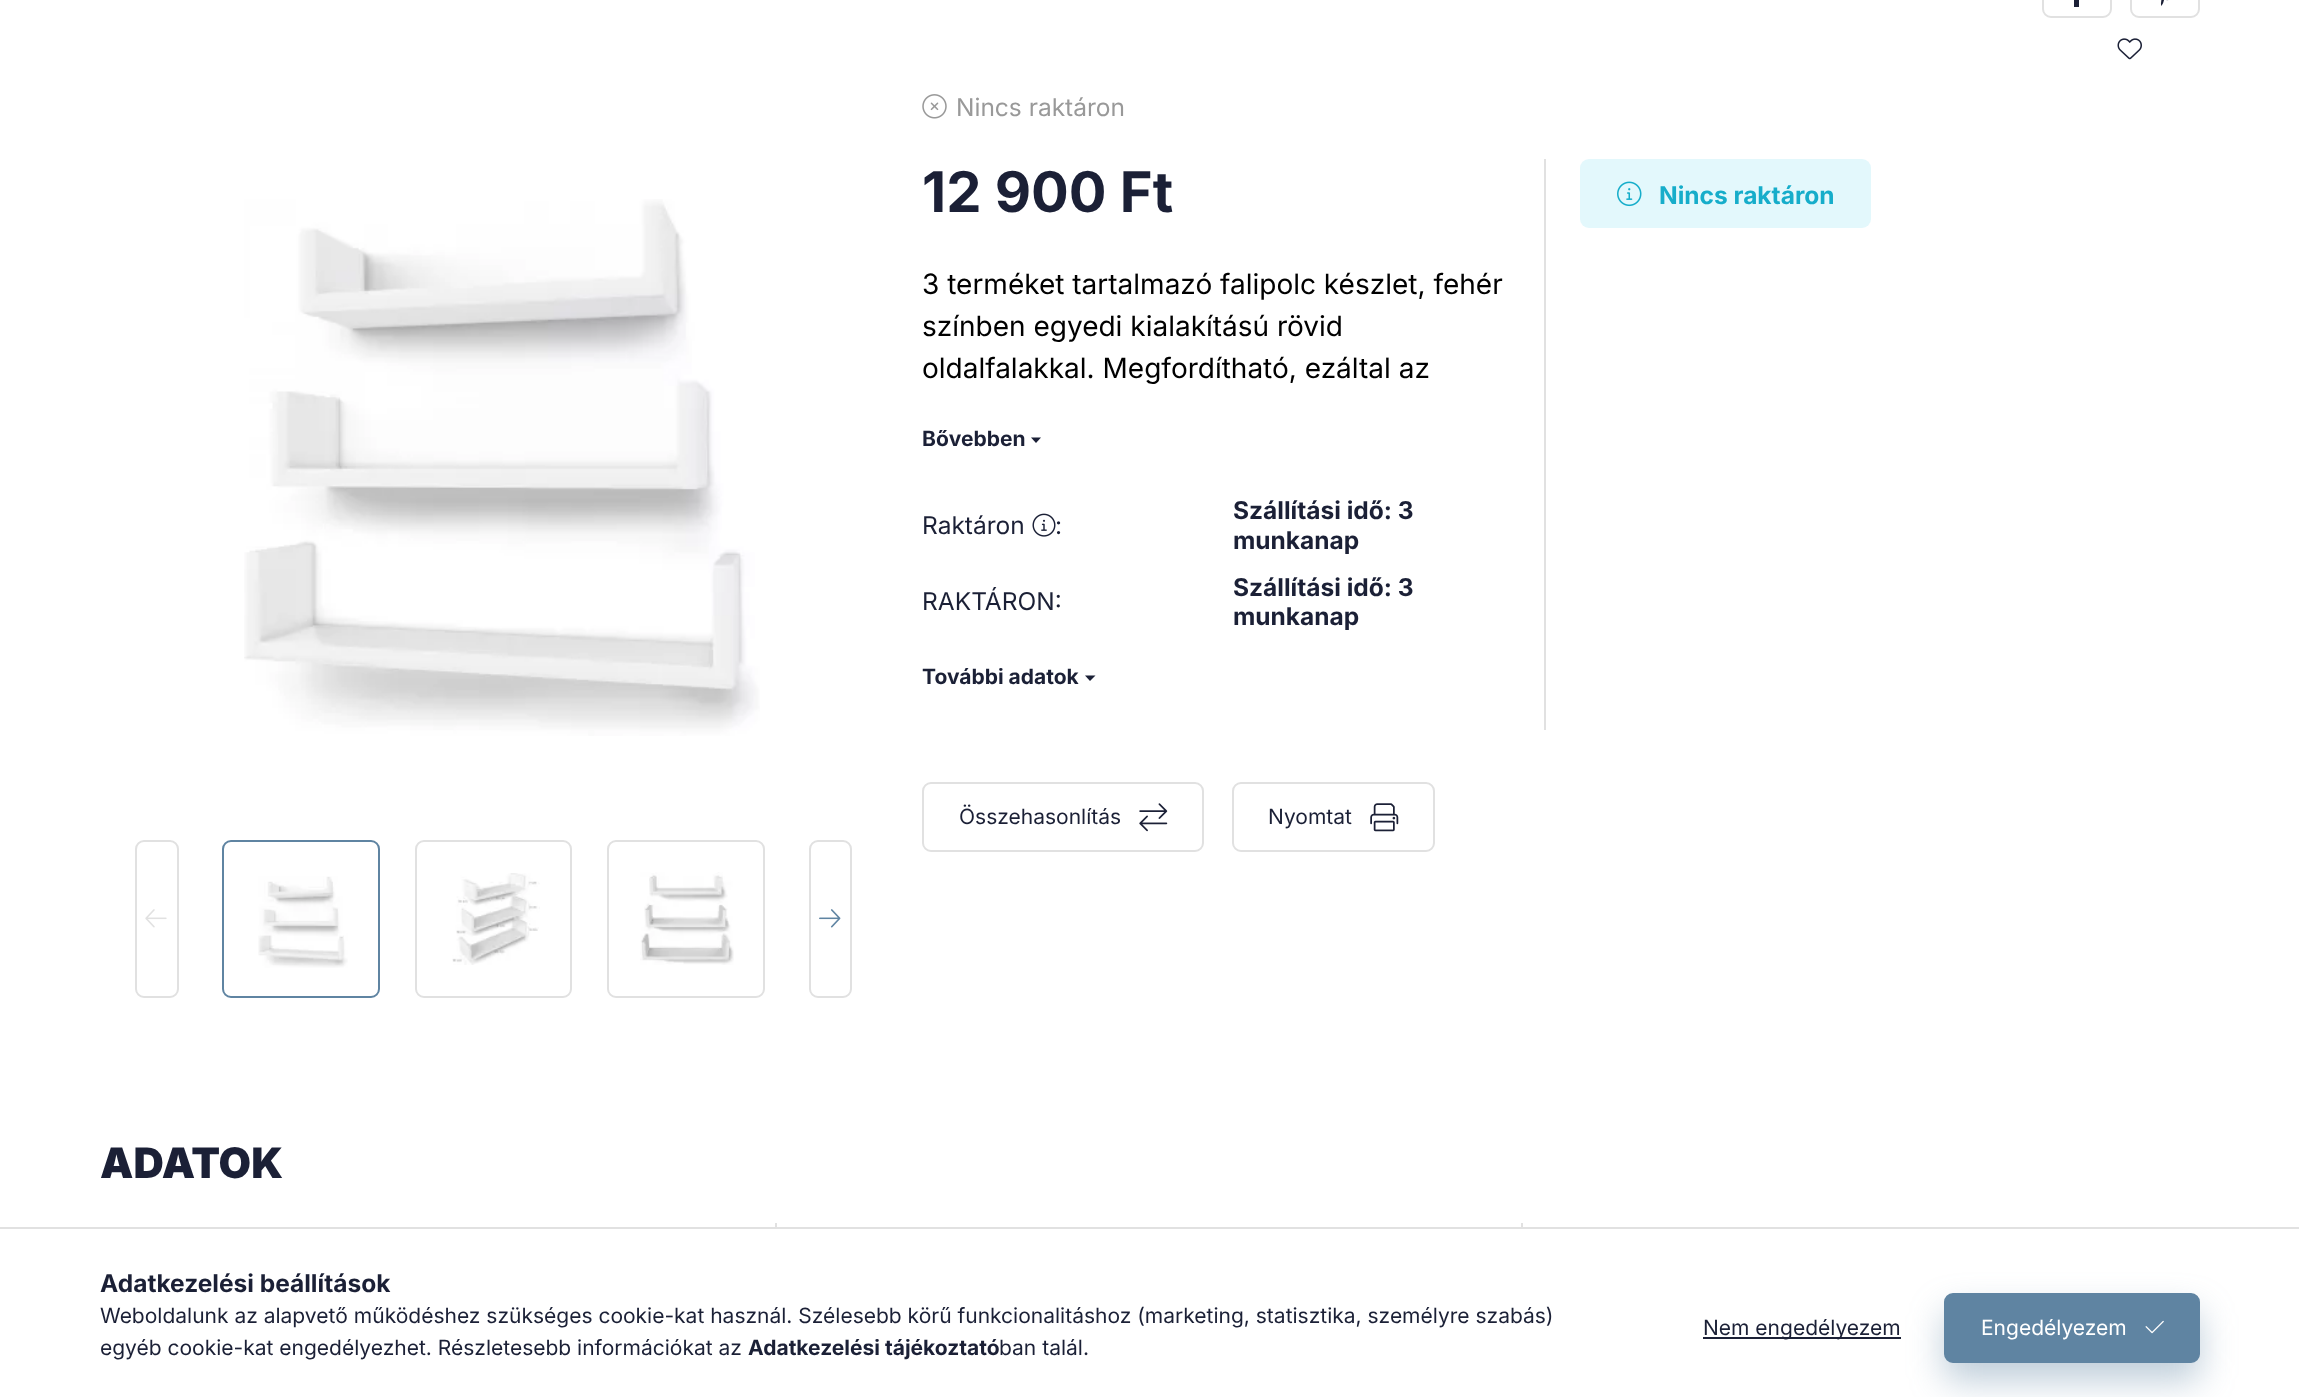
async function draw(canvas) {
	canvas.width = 2299;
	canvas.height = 1397;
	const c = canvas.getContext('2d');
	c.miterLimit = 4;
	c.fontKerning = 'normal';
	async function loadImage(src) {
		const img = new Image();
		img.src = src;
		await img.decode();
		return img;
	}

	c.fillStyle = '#fff';
	c.fillRect(0, 0, 2299, 1397);
	c.beginPath();
	c.roundRect(2043, -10, 68, 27, 8);
	c.strokeStyle = '#e1e1e1';
	c.lineWidth = 2;
	c.stroke();
	c.fillStyle = '#1b2036';
	c.fillRect(2074, 0, 5, 7);
	c.beginPath();
	c.roundRect(2131, -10, 68, 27, 8);
	c.stroke();
	c.drawImage(await loadImage('img1.png'), 2160, 0, 9, 6);
	c.drawImage(await loadImage('img2.png'), 2117, 38, 25, 22);
	c.drawImage(await loadImage('img3.png'), 244, 199, 516, 537);
	c.beginPath();
	c.roundRect(136, 841, 42, 156, 8);
	c.stroke();
	c.drawImage(await loadImage('img4.png'), 145, 909, 22, 19);
	c.beginPath();
	c.roundRect(223, 841, 156, 156, 8);
	c.strokeStyle = '#5f84a2';
	c.stroke();
	c.drawImage(await loadImage('img5.png'), 258, 876, 90, 92);
	c.beginPath();
	c.roundRect(416, 841, 155, 156, 8);
	c.strokeStyle = '#e1e1e1';
	c.stroke();
	c.drawImage(await loadImage('img6.png'), 452, 873, 88, 92);
	c.beginPath();
	c.roundRect(608, 841, 156, 156, 8);
	c.stroke();
	c.drawImage(await loadImage('img7.png'), 640, 872, 94, 93);
	c.beginPath();
	c.roundRect(810, 841, 41, 156, 8);
	c.stroke();
	c.drawImage(await loadImage('img8.png'), 819, 909, 22, 19);
	c.drawImage(await loadImage('img9.png'), 922, 94, 25, 25);
	c.font = '24.5px Inter';
	c.fillStyle = '#999';
	c.fillText('Nincs raktáron', 956, 116);
	c.font = 'bold 56px Inter';
	c.fillStyle = '#1b2036';
	c.fillText('12 900 Ft', 922, 212);
	c.font = '28px Inter';
	c.fillStyle = '#000';
	for (const [text, x, y] of [
		['3 terméket tartalmazó falipolc készlet, fehér', 922, 294],
		['színben egyedi kialakítású rövid', 922, 336],
		['oldalfalakkal. Megfordítható, ezáltal az', 922, 378],
	]) {
		c.fillText(text, x, y);
	}
	c.font = 'bold 21px Inter';
	c.fillStyle = '#1b2036';
	c.fillText('Bővebben', 922, 446);
	c.beginPath();
	c.moveTo(1031, 437.5);
	c.lineTo(1041, 437.5);
	c.lineTo(1036, 443);
	c.closePath();
	c.fill();
	c.font = '24.5px Inter';
	c.fillText('Raktáron', 922, 534);
	c.drawImage(await loadImage('img10.png'), 1032, 513, 24, 24);
	c.fillText(':', 1055, 534);
	c.font = 'bold 24.5px Inter';
	c.fillText('Szállítási idő: 3', 1233, 519);
	c.fillText('munkanap', 1233, 549);
	c.font = '24.5px Inter';
	c.fillText('RAKTÁRON:', 922, 610);
	c.font = 'bold 24.5px Inter';
	c.fillText('Szállítási idő: 3', 1233, 596);
	c.fillText('munkanap', 1233, 625);
	c.font = 'bold 21px Inter';
	c.fillText('További adatok', 922, 684);
	c.beginPath();
	c.moveTo(1085, 675.5);
	c.lineTo(1095.5, 675.5);
	c.lineTo(1090, 681);
	c.closePath();
	c.fill();
	c.fillStyle = '#e1e1e1';
	c.fillRect(1544, 159, 2, 571);
	c.fillStyle = '#e3f8fc';
	c.beginPath();
	c.roundRect(1580, 159, 291, 69, 9);
	c.fill();
	c.drawImage(await loadImage('img11.png'), 1617, 181, 25, 26);
	c.font = 'bold 24.5px Inter';
	c.fillStyle = '#16adca';
	c.fillText('Nincs raktáron', 1659, 204);
	c.beginPath();
	c.roundRect(923, 783, 280, 68, 8);
	c.stroke();
	c.font = '21px Inter';
	c.fillStyle = '#1b2036';
	c.fillText('Összehasonlítás', 959, 824);
	c.drawImage(await loadImage('img12.png'), 1139, 803, 29, 29);
	c.beginPath();
	c.roundRect(1233, 783, 201, 68, 8);
	c.stroke();
	c.fillText('Nyomtat', 1268, 824);
	c.drawImage(await loadImage('img13.png'), 1370, 803, 29, 29);
	c.font = '900 42px Inter';
	c.fillText('ADATOK', 100, 1178);
	for (const [x, y, w, h, color] of [
		[775, 1223, 2, 4, '#e1e1e1'],
		[1521, 1223, 2, 4, '#e1e1e1'],
		[0, 1227, 2299, 2, '#e1e1e1'],
	]) {
		c.fillStyle = color;
		c.fillRect(x, y, w, h);
	}
	c.font = 'bold 24.5px Inter';
	c.fillStyle = '#1b2036';
	c.fillText('Adatkezelési beállítások', 100, 1292);
	c.font = '21px Inter';
	c.fillText('Weboldalunk az alapvető működéshez szükséges cookie-kat használ. Szélesebb körű funkcionalitáshoz (marketing, statisztika, személyre szabás)', 100, 1323);
	c.fillText('egyéb cookie-kat engedélyezhet. Részletesebb információkat az', 100, 1355);
	c.font = 'bold 21px Inter';
	c.fillText('Adatkezelési tájékoztató', 748, 1355);
	c.font = '21px Inter';
	c.fillText('ban talál.', 999, 1355);
	c.fillRect(1703, 1337, 198, 2);
	c.fillText('Nem engedélyezem', 1703, 1335);
	c.fillStyle = '#5f84a266';
	c.filter = 'blur(17.5px)';
	c.beginPath();
	c.roundRect(1944, 1311, 256, 70, 9);
	c.fill();
	c.filter = 'none';
	c.fillStyle = '#5f84a2';
	c.beginPath();
	c.roundRect(1945, 1294, 254, 68, 8);
	c.fill();
	c.strokeStyle = '#5f84a2';
	c.stroke();
	c.fillStyle = '#fff';
	c.fillText('Engedélyezem', 1981, 1335);
	c.drawImage(await loadImage('img14.png'), 2145, 1320, 19, 14);
}

draw(document.querySelector('canvas'));
